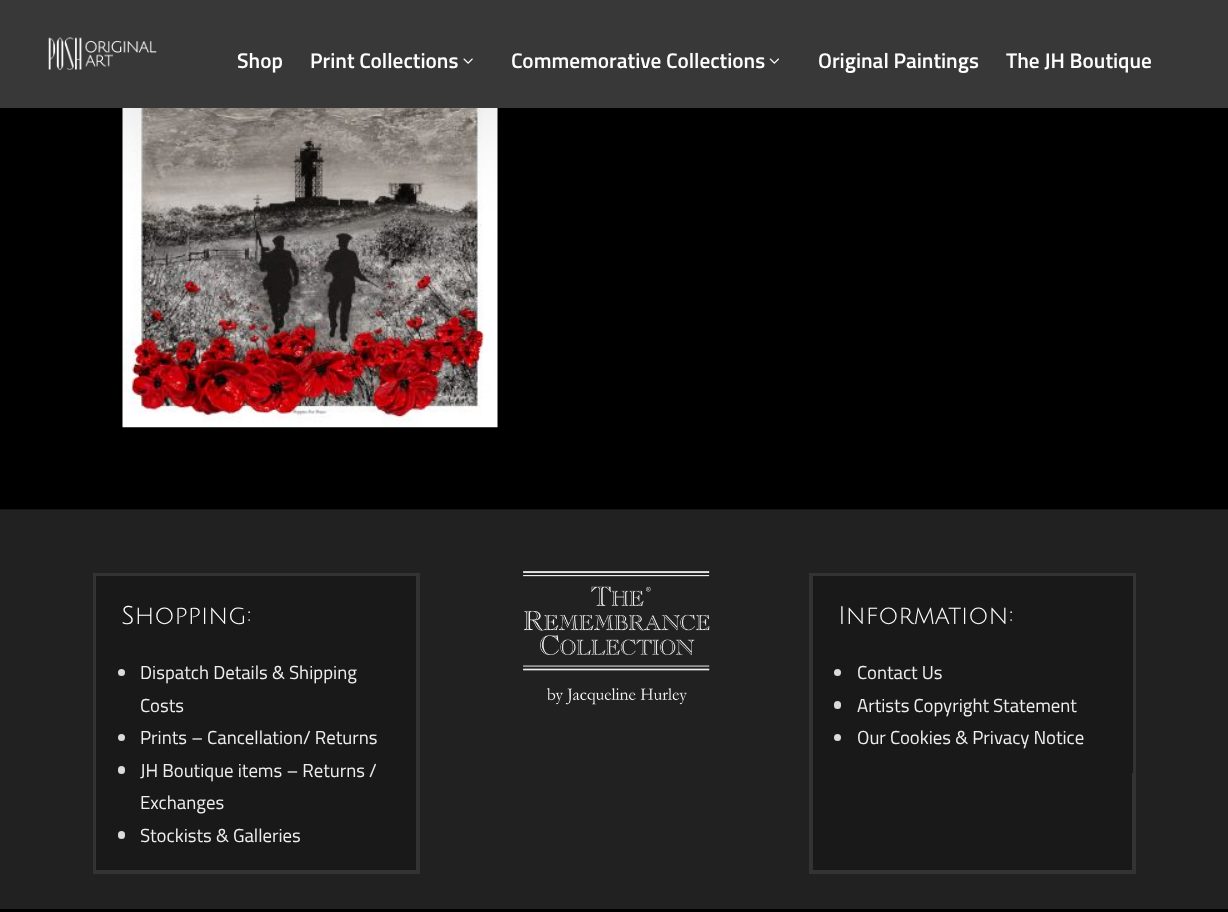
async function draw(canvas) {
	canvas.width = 1228;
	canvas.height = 912;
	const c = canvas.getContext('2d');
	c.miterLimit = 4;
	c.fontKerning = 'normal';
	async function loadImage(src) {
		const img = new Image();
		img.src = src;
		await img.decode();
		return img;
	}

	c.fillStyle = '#000';
	c.fillRect(0, 0, 1228, 912);
	c.drawImage(await loadImage('img4.png'), 122, 108, 376, 320);
	c.fillStyle = '#0000001a';
	c.filter = 'blur(50px)';
	c.beginPath();
	c.rect(0, 6, 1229, 108);
	c.fill();
	c.filter = 'none';
	c.fillStyle = '#383838';
	c.fillRect(0, 0, 1228, 108);
	c.drawImage(await loadImage('img1.png'), 48, 37, 109, 33);
	c.font = '600 21.25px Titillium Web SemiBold';
	c.fillStyle = '#fff';
	c.fillText('Shop', 237, 68);
	c.fillText('Print Collections', 310, 68);
	c.drawImage(await loadImage('img2.png'), 463, 58, 10, 6);
	c.fillText('Commemorative Collections', 511, 68);
	c.drawImage(await loadImage('img3.png'), 769, 58, 10, 6);
	c.fillText('Original Paintings', 818, 68);
	c.fillText('The JH Boutique', 1006, 68);
	c.fillStyle = '#212121';
	c.fillRect(0, 510, 1228, 399);
	c.fillStyle = '#191414';
	c.fillRect(0, 509, 1228, 1);
	c.strokeStyle = '#333';
	c.lineWidth = 4;
	c.strokeRect(95, 575, 323, 297);
	c.fillStyle = '#191919';
	c.fillRect(96, 576, 320, 294);
	c.font = '25px Julius Sans One';
	c.fillStyle = '#fff';
	c.fillText('Shopping:', 121, 624);
	c.fillStyle = '#dbdbdb';
	c.beginPath();
	c.arc(121.5, 672.5, 3.5, 0, 2 * Math.PI);
	c.fill();
	c.font = '18.75px Titillium Web';
	c.fillStyle = '#efefef';
	c.fillText('Dispatch Details & Shipping', 140, 679);
	c.fillText('Costs', 140, 712);
	c.fillStyle = '#dbdbdb';
	c.beginPath();
	c.arc(121.5, 737.5, 3.5, 0, 2 * Math.PI);
	c.fill();
	c.fillStyle = '#efefef';
	c.fillText('Prints – Cancellation/ Returns', 140, 744);
	c.fillStyle = '#dbdbdb';
	c.beginPath();
	c.roundRect(118, 766, 7, 8, 3.5);
	c.fill();
	c.fillStyle = '#efefef';
	c.fillText('JH Boutique items – Returns /', 140, 777);
	c.fillText('Exchanges', 140, 809);
	c.fillStyle = '#dbdbdb';
	c.beginPath();
	c.roundRect(118, 831, 7, 8, 3.5);
	c.fill();
	c.fillStyle = '#efefef';
	c.fillText('Stockists & Galleries', 140, 842);
	c.drawImage(await loadImage('img5.png'), 523, 571, 187, 134);
	c.fillStyle = '#191919';
	c.fillRect(813, 773, 319, 97);
	c.strokeRect(811, 575, 323, 297);
	c.fillRect(813, 576, 320, 197);
	c.font = '25px Julius Sans One';
	c.fillStyle = '#fff';
	c.fillText('Information:', 838, 624);
	c.fillStyle = '#dbdbdb';
	c.beginPath();
	c.arc(837.5, 672.5, 3.5, 0, 2 * Math.PI);
	c.fill();
	c.font = '18.75px Titillium Web';
	c.fillStyle = '#efefef';
	c.fillText('Contact Us', 857, 679);
	c.fillStyle = '#dbdbdb';
	c.beginPath();
	c.roundRect(834, 701, 7, 8, 3.5);
	c.fill();
	c.fillStyle = '#efefef';
	c.fillText('Artists Copyright Statement', 857, 712);
	c.fillStyle = '#dbdbdb';
	c.beginPath();
	c.arc(837.5, 737.5, 3.5, 0, 2 * Math.PI);
	c.fill();
	c.fillStyle = '#efefef';
	c.fillText('Our Cookies & Privacy Notice', 857, 744);
}

draw(document.querySelector('canvas'));
